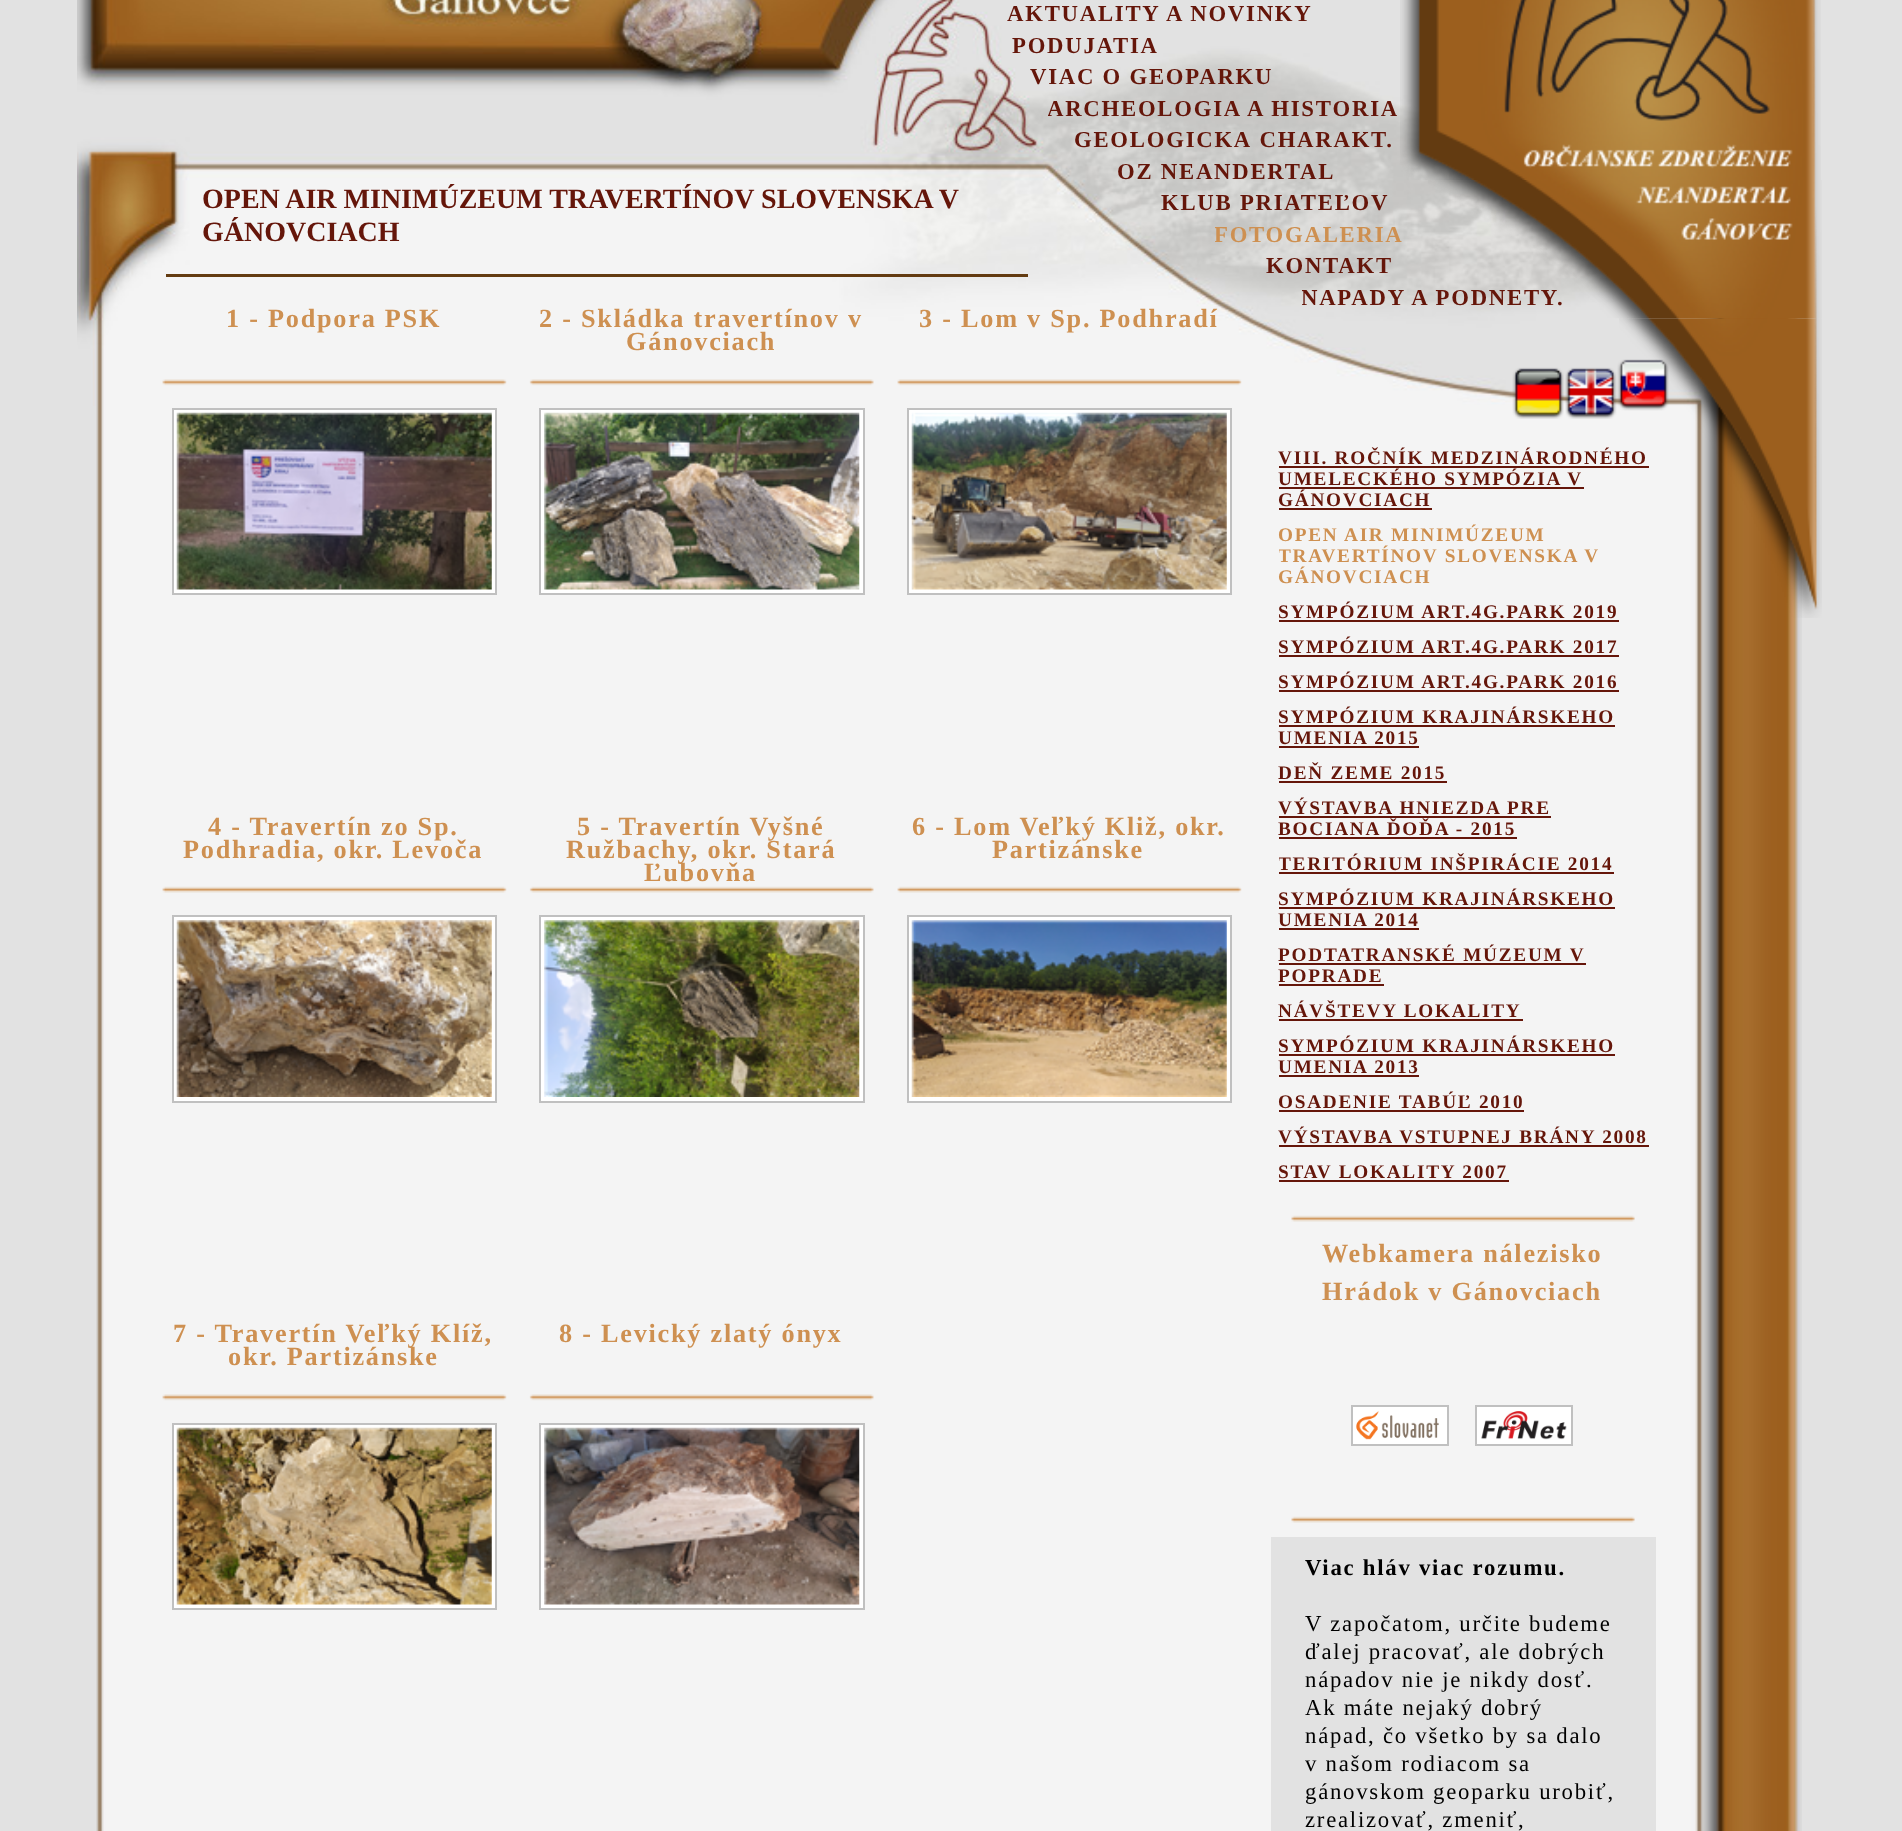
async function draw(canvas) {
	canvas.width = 1902;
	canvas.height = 1831;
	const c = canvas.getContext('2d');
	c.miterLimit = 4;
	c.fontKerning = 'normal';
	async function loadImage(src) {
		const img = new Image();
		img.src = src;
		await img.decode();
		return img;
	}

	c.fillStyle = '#e2e2e2';
	c.fillRect(0, 0, 1902, 1831);
	c.drawImage(await loadImage('img1.png'), 96, 318, 1706, 1513);
	c.drawImage(await loadImage('img2.png'), 77, 0, 1691, 406);
	c.letterSpacing = '1.75px';
	c.font = 'bold 22.75px Liberation Serif';
	c.fillStyle = '#65160a';
	for (const [text, x, y] of [
		['AKTUALITY A NOVINKY', 1007, 21],
		['PODUJATIA', 1012, 53],
		['VIAC O GEOPARKU', 1030, 84],
	]) {
		c.fillText(text, x, y);
	}
	c.save();
	c.beginPath();
	c.rect(1048, 100, 569, 31);
	c.clip();
	c.fillText('ARCHEOLÓGIA A HISTÓRIA', 1047, 116);
	c.restore();
	c.save();
	c.beginPath();
	c.rect(1075, 131, 542, 32);
	c.clip();
	c.fillText('GEOLOGICKÁ CHARAKT.', 1074, 147);
	c.restore();
	c.fillText('OZ NEANDERTAL', 1117, 179);
	c.fillText('KLUB PRIATEĽOV', 1161, 210);
	c.save();
	c.beginPath();
	c.rect(1215, 226, 402, 31);
	c.clip();
	c.fillStyle = '#ce9051';
	c.fillText('FOTOGALÉRIA', 1214, 242);
	c.restore();
	c.fillText('KONTAKT', 1266, 273);
	c.drawImage(await loadImage('img4.png'), 1428, 180, 394, 139);
	c.save();
	c.beginPath();
	c.rect(1302, 289, 315, 17);
	c.clip();
	c.fillText('NÁPADY A PODNETY.', 1301, 305);
	c.restore();
	c.drawImage(await loadImage('img3.png'), 1400, 0, 421, 180);
	c.fillStyle = '#633b11';
	c.fillRect(166, 274, 862, 3);
	c.letterSpacing = '0px';
	c.font = 'bold 28px Liberation Serif';
	c.fillStyle = '#65160a';
	c.fillText('OPEN AIR MINIMÚZEUM TRAVERTÍNOV SLOVENSKA V', 202, 208);
	c.fillText('GÁNOVCIACH', 202, 241);
	c.drawImage(await loadImage('img5.png'), 162, 379, 345, 7);
	c.letterSpacing = '1.75px';
	c.font = 'bold 26.25px Liberation Serif';
	c.fillStyle = '#ce9051';
	c.fillText('1 - Podpora PSK', 226, 327);
	c.fillStyle = '#fff';
	c.beginPath();
	c.rect(173, 409, 323, 185);
	c.fill();
	c.strokeStyle = '#c0c0c0';
	c.lineWidth = 2;
	c.stroke();
	c.drawImage(await loadImage('img6.png'), 176, 412, 316, 178);
	c.drawImage(await loadImage('img7.png'), 529, 379, 345, 7);
	c.fillStyle = '#ce9051';
	c.fillText('2 - Skládka travertínov v', 539, 327);
	c.fillText('Gánovciach', 626, 350);
	c.fillStyle = '#fff';
	c.beginPath();
	c.rect(540, 409, 324, 185);
	c.fill();
	c.stroke();
	c.drawImage(await loadImage('img8.png'), 544, 412, 316, 178);
	c.drawImage(await loadImage('img9.png'), 897, 379, 345, 7);
	c.fillStyle = '#ce9051';
	c.fillText('3 - Lom v Sp. Podhradí', 919, 327);
	c.fillStyle = '#fff';
	c.beginPath();
	c.rect(908, 409, 323, 185);
	c.fill();
	c.stroke();
	c.drawImage(await loadImage('img10.png'), 911, 412, 316, 178);
	c.drawImage(await loadImage('img11.png'), 162, 886, 345, 7);
	c.fillStyle = '#ce9051';
	c.fillText('4 - Travertín zo Sp.', 208, 835);
	c.fillText('Podhradia, okr. Levoča', 183, 858);
	c.fillStyle = '#fff';
	c.beginPath();
	c.rect(173, 916, 323, 186);
	c.fill();
	c.stroke();
	c.drawImage(await loadImage('img12.png'), 176, 920, 316, 177);
	c.drawImage(await loadImage('img13.png'), 529, 886, 345, 7);
	c.fillStyle = '#ce9051';
	for (const [text, x, y] of [
		['5 - Travertín Vyšné', 577, 835],
		['Ružbachy, okr. Stará', 566, 858],
		['Ľubovňa', 644, 881],
	]) {
		c.fillText(text, x, y);
	}
	c.fillStyle = '#fff';
	c.beginPath();
	c.rect(540, 916, 324, 186);
	c.fill();
	c.stroke();
	c.drawImage(await loadImage('img14.png'), 544, 920, 316, 177);
	c.drawImage(await loadImage('img15.png'), 897, 886, 345, 7);
	c.fillStyle = '#ce9051';
	c.fillText('6 - Lom Veľký Kliž, okr.', 912, 835);
	c.fillText('Partizánske', 992, 858);
	c.fillStyle = '#fff';
	c.beginPath();
	c.rect(908, 916, 323, 186);
	c.fill();
	c.stroke();
	c.drawImage(await loadImage('img16.png'), 911, 920, 316, 177);
	c.drawImage(await loadImage('img5.png'), 162, 1394, 345, 7);
	c.fillStyle = '#ce9051';
	c.fillText('7 - Travertín Veľký Klíž,', 173, 1342);
	c.fillText('okr. Partizánske', 228, 1365);
	c.fillStyle = '#fff';
	c.beginPath();
	c.rect(173, 1424, 323, 185);
	c.fill();
	c.stroke();
	c.drawImage(await loadImage('img17.png'), 176, 1427, 316, 178);
	c.drawImage(await loadImage('img7.png'), 529, 1394, 345, 7);
	c.fillStyle = '#ce9051';
	c.fillText('8 - Levický zlatý ónyx', 559, 1342);
	c.fillStyle = '#fff';
	c.beginPath();
	c.rect(540, 1424, 324, 185);
	c.fill();
	c.stroke();
	c.drawImage(await loadImage('img18.png'), 544, 1427, 316, 178);
	c.font = 'bold 19.25px Liberation Serif';
	c.fillStyle = '#65160a';
	c.fillText('VIII. ROČNÍK MEDZINÁRODNÉHO', 1278, 464);
	c.fillText('UMELECKÉHO SYMPÓZIA V', 1278, 485);
	c.fillRect(1279, 466, 370, 2);
	c.fillText('GÁNOVCIACH', 1278, 506);
	c.fillRect(1279, 487, 305, 2);
	c.fillRect(1279, 508, 153, 2);
	c.fillStyle = '#ce9051';
	c.fillText('OPEN AIR MINIMÚZEUM', 1278, 541);
	c.save();
	c.beginPath();
	c.rect(1279, 523, 377, 77);
	c.clip();
	c.fillText('TRAVERTÍNOV SLOVENSKA V', 1278, 562);
	c.restore();
	c.fillText('GÁNOVCIACH', 1278, 583);
	c.fillStyle = '#65160a';
	c.fillText('SYMPÓZIUM ART.4G.PARK 2019', 1278, 618);
	c.fillRect(1279, 620, 340, 2);
	c.fillText('SYMPÓZIUM ART.4G.PARK 2017', 1278, 653);
	c.fillRect(1279, 655, 340, 2);
	c.fillText('SYMPÓZIUM ART.4G.PARK 2016', 1278, 688);
	c.fillRect(1279, 690, 340, 2);
	c.fillText('SYMPÓZIUM KRAJINÁRSKEHO', 1278, 723);
	c.fillRect(1279, 725, 336, 2);
	c.fillText('UMENIA 2015', 1278, 744);
	c.fillRect(1279, 746, 140, 2);
	c.fillText('DEŇ ZEME 2015', 1278, 779);
	c.fillRect(1279, 781, 168, 2);
	c.fillText('VÝSTAVBA HNIEZDA PRE', 1278, 814);
	c.fillText('BOCIANA ĎOĎA - 2015', 1278, 835);
	c.fillRect(1279, 816, 272, 2);
	c.fillRect(1279, 837, 238, 2);
	c.save();
	c.beginPath();
	c.rect(1279, 852, 377, 35);
	c.clip();
	c.fillText('TERITÓRIUM INŠPIRÁCIE 2014', 1278, 870);
	c.restore();
	c.fillRect(1279, 872, 335, 2);
	c.fillText('SYMPÓZIUM KRAJINÁRSKEHO', 1278, 905);
	c.fillRect(1279, 907, 336, 2);
	c.fillText('UMENIA 2014', 1278, 926);
	c.fillRect(1279, 928, 140, 2);
	c.fillText('PODTATRANSKÉ MÚZEUM V', 1278, 961);
	c.fillRect(1279, 963, 307, 2);
	c.fillText('POPRADE', 1278, 982);
	c.fillRect(1279, 984, 105, 2);
	c.fillText('NÁVŠTEVY LOKALITY', 1278, 1017);
	c.fillRect(1279, 1019, 244, 2);
	c.fillText('SYMPÓZIUM KRAJINÁRSKEHO', 1278, 1052);
	c.fillRect(1279, 1054, 336, 2);
	c.fillText('UMENIA 2013', 1278, 1073);
	c.fillRect(1279, 1075, 140, 2);
	c.fillText('OSADENIE TABÚĽ 2010', 1278, 1108);
	c.fillRect(1279, 1110, 245, 2);
	c.fillText('VÝSTAVBA VSTUPNEJ BRÁNY 2008', 1278, 1143);
	c.fillRect(1279, 1145, 370, 2);
	c.fillText('STAV LOKALITY 2007', 1278, 1178);
	c.fillRect(1279, 1180, 230, 2);
	c.drawImage(await loadImage('img19.png'), 1291, 1215, 344, 7);
	c.font = 'bold 26.25px Liberation Serif';
	c.fillStyle = '#ce9051';
	c.fillText('Webkamera nálezisko', 1322, 1262);
	c.fillText('Hrádok v Gánovciach', 1322, 1300);
	c.fillStyle = '#fff';
	c.beginPath();
	c.rect(1352, 1406, 96, 39);
	c.fill();
	c.stroke();
	c.beginPath();
	c.rect(1476, 1406, 96, 39);
	c.fill();
	c.stroke();
	c.drawImage(await loadImage('img20.png'), 1356, 1411, 83, 29);
	c.drawImage(await loadImage('img21.png'), 1481, 1411, 86, 29);
	c.drawImage(await loadImage('img19.png'), 1291, 1516, 344, 7);
	c.fillStyle = '#e2e2e2';
	c.fillRect(1271, 1537, 385, 294);
	c.font = 'bold 22.75px Liberation Serif';
	c.fillStyle = '#000';
	c.fillText('Viac hláv viac rozumu.', 1305, 1575);
	c.font = '22.75px Liberation Serif';
	for (const [text, x, y] of [
		['V započatom, určite budeme', 1305, 1631],
		['ďalej pracovať, ale dobrých', 1305, 1659],
		['nápadov nie je nikdy dosť.', 1305, 1687],
		['Ak máte nejaký dobrý', 1305, 1715],
		['nápad, čo všetko by sa dalo', 1305, 1743],
		['v našom rodiacom sa', 1305, 1771],
		['gánovskom geoparku urobiť,', 1305, 1799],
		['zrealizovať, zmeniť,', 1305, 1827],
	]) {
		c.fillText(text, x, y);
	}
	c.drawImage(await loadImage('img22.png'), 1619, 318, 203, 300);
	c.drawImage(await loadImage('img23.png'), 1512, 367, 52, 52);
	c.drawImage(await loadImage('img24.png'), 1565, 367, 52, 52);
	c.drawImage(await loadImage('img25.png'), 1617, 359, 52, 52);
}

draw(document.querySelector('canvas'));
